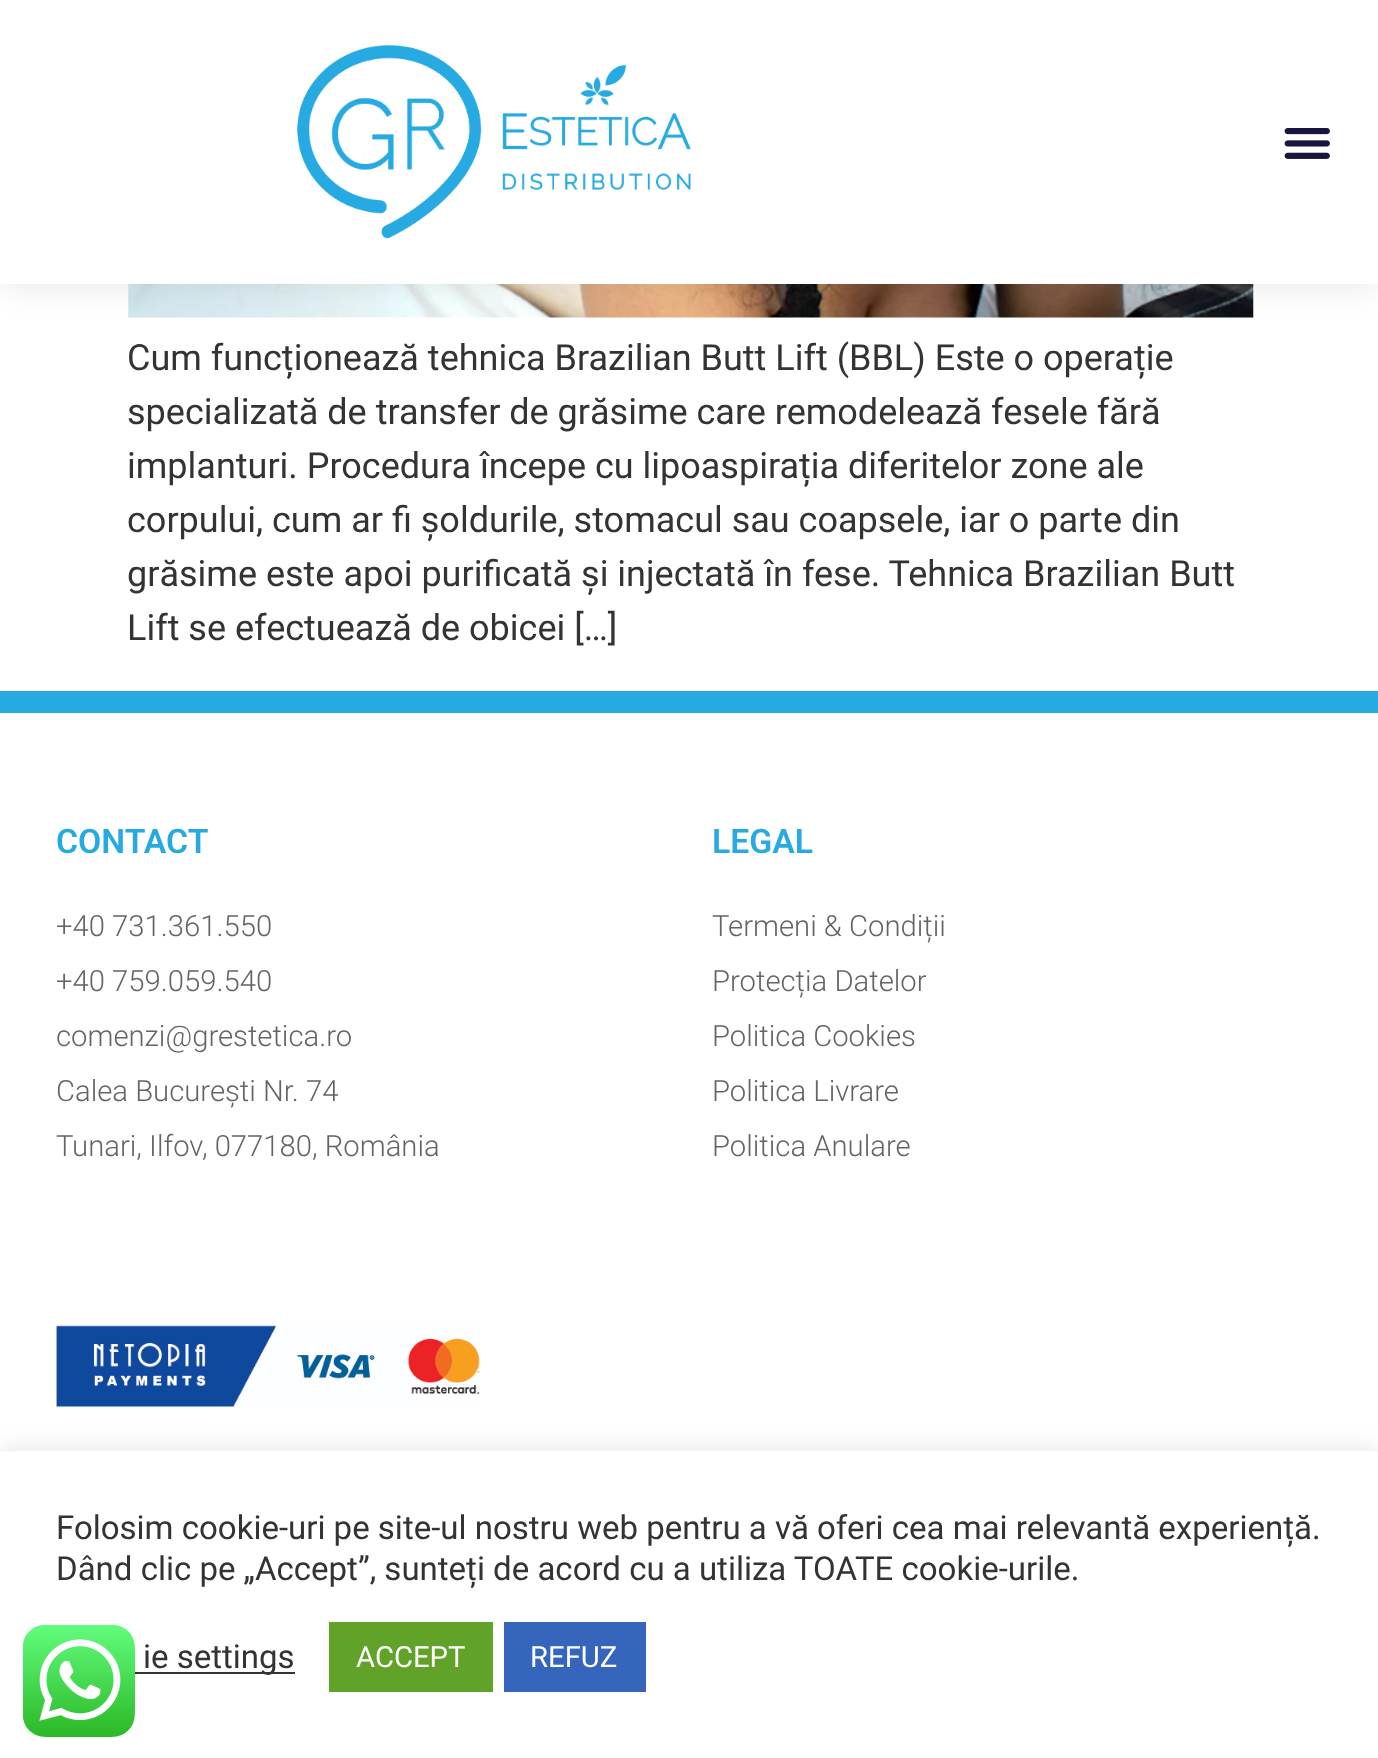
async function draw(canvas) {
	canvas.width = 1378;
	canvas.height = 1758;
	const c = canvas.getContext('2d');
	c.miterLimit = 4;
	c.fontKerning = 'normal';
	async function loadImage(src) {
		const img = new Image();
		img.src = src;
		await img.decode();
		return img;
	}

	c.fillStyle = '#fff';
	c.fillRect(0, 0, 1378, 1758);
	c.drawImage(await loadImage('img3.png'), 128, 284, 1126, 34);
	c.fillStyle = '#0000001a';
	c.filter = 'blur(17px)';
	c.beginPath();
	c.rect(0, 0, 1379, 284);
	c.fill();
	c.filter = 'none';
	c.fillStyle = '#fff';
	c.fillRect(0, 0, 1378, 284);
	c.drawImage(await loadImage('img1.png'), 297, 45, 394, 194);
	c.drawImage(await loadImage('img2.png'), 1284, 128, 46, 31);
	c.font = '36px Roboto';
	c.fillStyle = '#333';
	for (const [text, x, y] of [
		['Cum funcționează tehnica Brazilian Butt Lift (BBL) Este o operație', 127, 370],
		['specializată de transfer de grăsime care remodelează fesele fără', 127, 424],
		['implanturi. Procedura începe cu lipoaspirația diferitelor zone ale', 127, 478],
		['corpului, cum ar fi șoldurile, stomacul sau coapsele, iar o parte din', 127, 532],
		['grăsime este apoi purificată și injectată în fese. Tehnica Brazilian Butt', 127, 586],
		['Lift se efectuează de obicei […]', 127, 640],
	]) {
		c.fillText(text, x, y);
	}
	c.fillStyle = '#27aae1';
	c.fillRect(0, 691, 1378, 22);
	c.font = '600 33.75px Roboto';
	c.fillText('CONTACT', 56, 853);
	c.font = '300 29.25px Roboto';
	c.fillStyle = '#656464';
	for (const [text, x, y] of [
		['+40 731.361.550', 56, 936],
		['+40 759.059.540', 56, 991],
		['comenzi@grestetica.ro', 56, 1046],
		['Calea București Nr. 74', 56, 1101],
		['Tunari, Ilfov, 077180, România', 56, 1156],
	]) {
		c.fillText(text, x, y);
	}
	c.font = '600 33.75px Roboto';
	c.fillStyle = '#27aae1';
	c.fillText('LEGAL', 712, 853);
	c.font = '300 29.25px Roboto';
	c.fillStyle = '#656464';
	for (const [text, x, y] of [
		['Termeni & Condiții', 712, 936],
		['Protecția Datelor', 712, 991],
		['Politica Cookies', 712, 1046],
		['Politica Livrare', 712, 1101],
		['Politica Anulare', 712, 1156],
	]) {
		c.fillText(text, x, y);
	}
	c.drawImage(await loadImage('img4.png'), 56, 1325, 424, 82);
	c.fillStyle = '#acabab4d';
	c.filter = 'blur(11px)';
	c.beginPath();
	c.rect(0, 1449, 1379, 308);
	c.fill();
	c.filter = 'none';
	c.fillStyle = '#fff';
	c.fillRect(0, 1451, 1378, 307);
	c.font = '33px Roboto';
	c.fillStyle = '#333';
	c.fillText('Folosim cookie-uri pe site-ul nostru web pentru a vă oferi cea mai relevantă experiență.', 56, 1539);
	c.fillText('Dând clic pe „Accept”, sunteți de acord cu a utiliza TOATE cookie-urile.', 56, 1580);
	c.fillRect(135, 1672, 160, 2);
	c.fillText('ie settings', 143, 1668);
	c.fillStyle = '#61a229';
	c.fillRect(329, 1622, 164, 70);
	c.font = '29.25px Roboto';
	c.fillStyle = '#fff';
	c.fillText('ACCEPT', 356, 1667);
	c.fillStyle = '#3566bb';
	c.fillRect(504, 1622, 142, 70);
	c.fillStyle = '#fff';
	c.fillText('REFUZ', 530, 1667);
	c.drawImage(await loadImage('img5.png'), 23, 1625, 112, 112);
}

draw(document.querySelector('canvas'));
